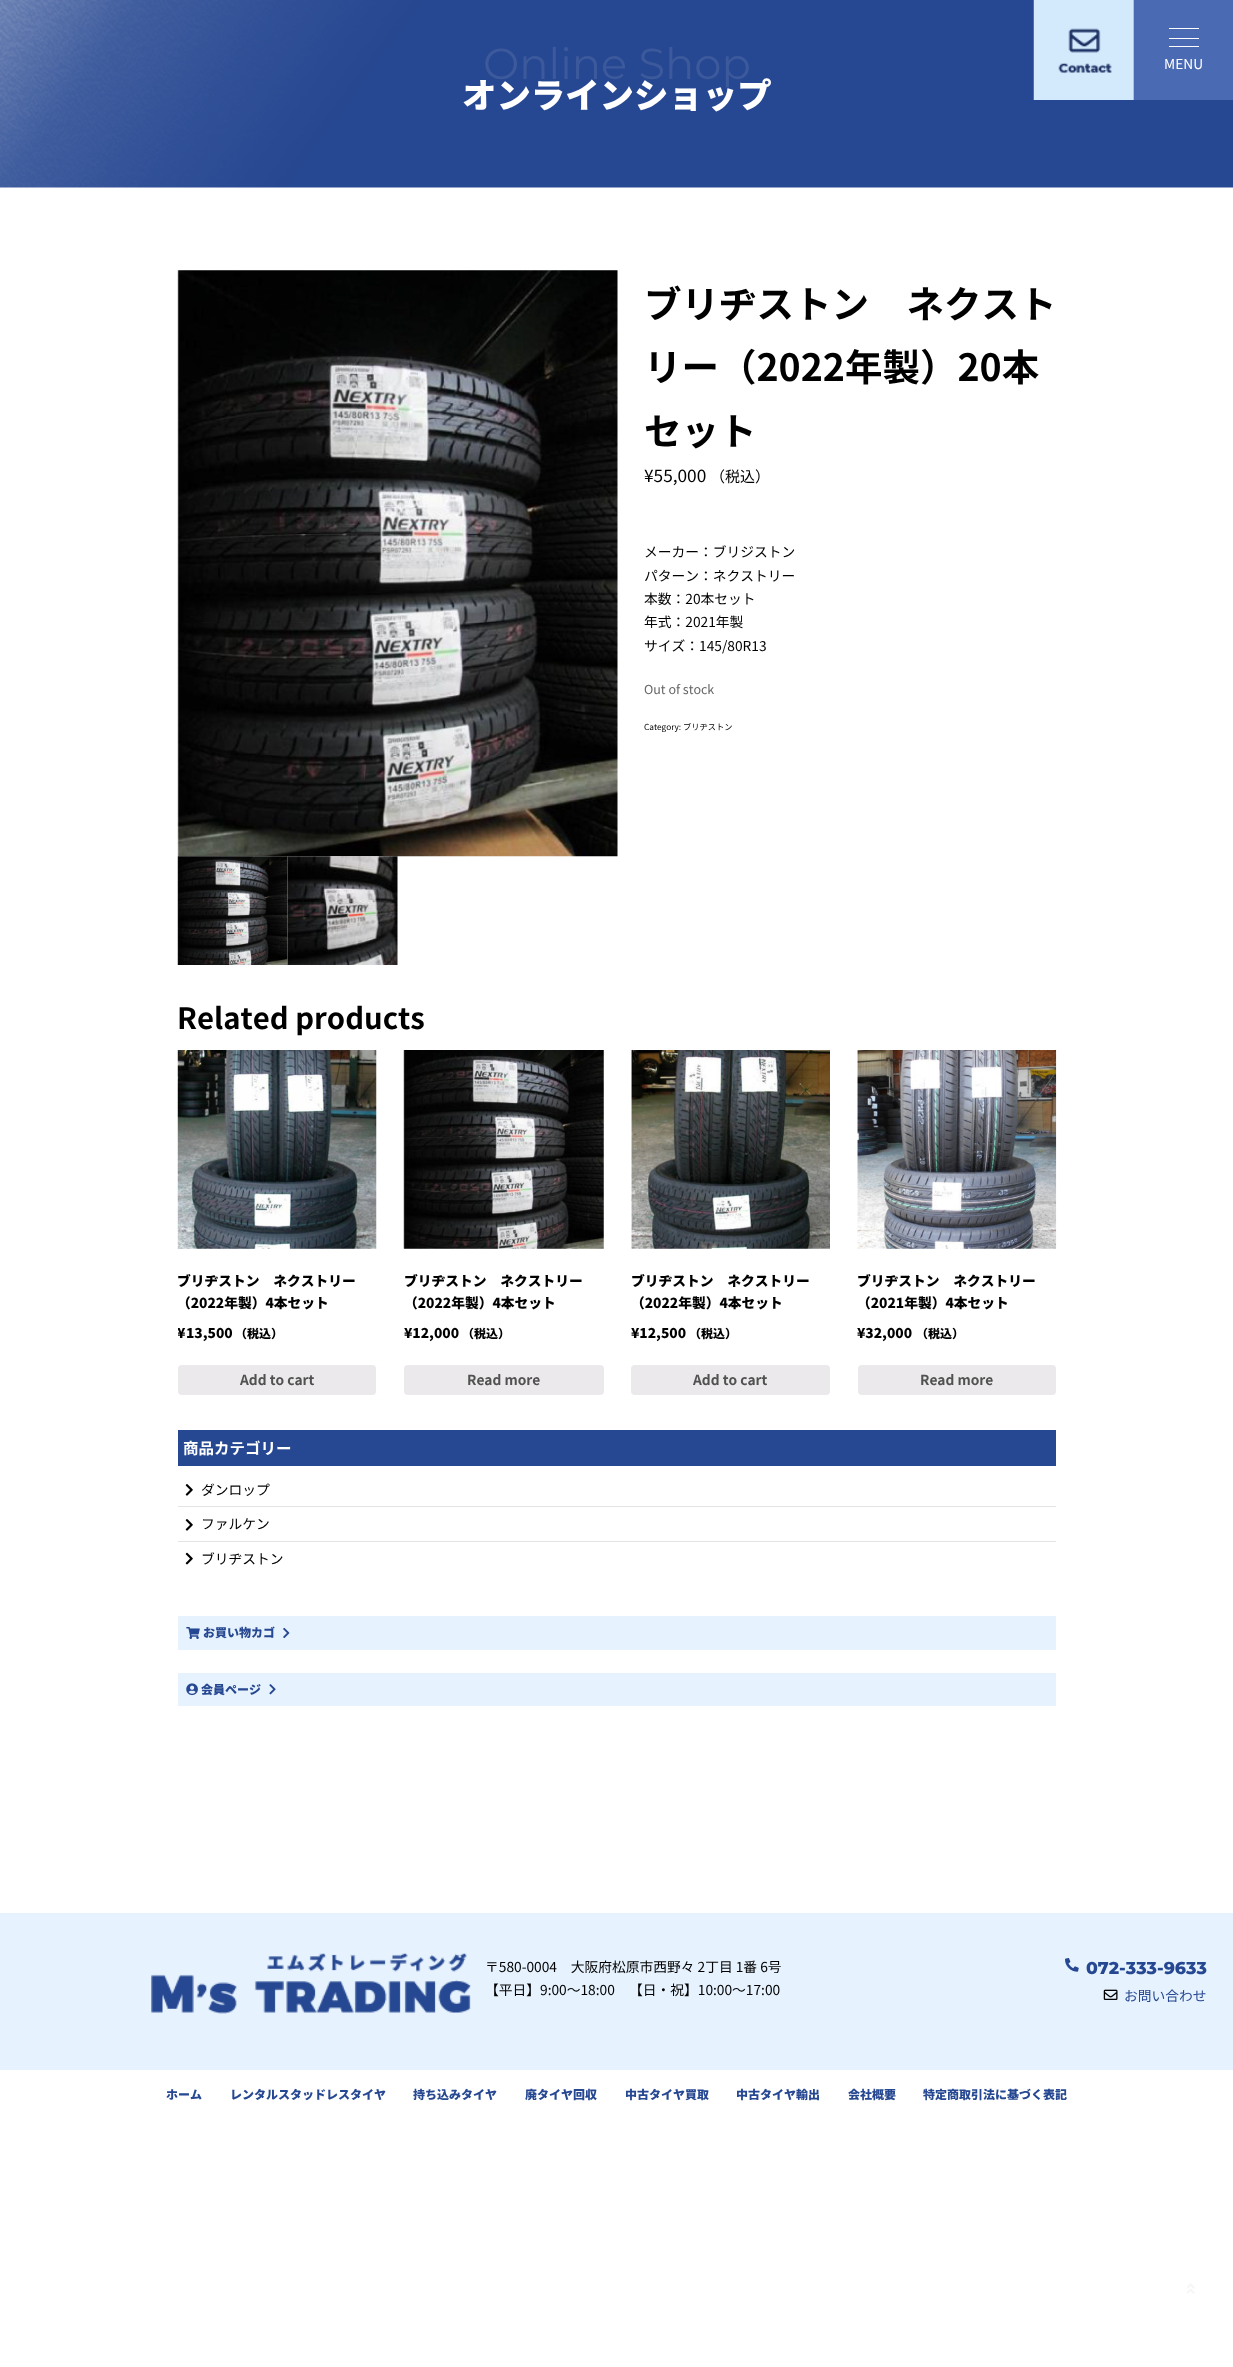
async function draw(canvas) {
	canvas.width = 1233;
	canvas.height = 2367;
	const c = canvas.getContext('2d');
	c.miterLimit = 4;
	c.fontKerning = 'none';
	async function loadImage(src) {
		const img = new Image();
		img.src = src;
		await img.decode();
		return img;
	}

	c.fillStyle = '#fff';
	c.fillRect(0, 0, 1233, 2367);
	c.drawImage(await loadImage('img1.png'), 0, 0, 1233, 188);
	c.font = '43.25px Montserrat';
	c.fillStyle = '#3c599c';
	c.fillText('Online Shop', 483, 79);
	c.font = '900 34.4px Noto Sans JP';
	c.fillStyle = '#fff';
	c.fillText('オンラインショップ', 462, 108);
	c.drawImage(await loadImage('img2.png'), 1033, 0, 101, 100);
	for (const [x, y, w, h, color] of [
		[1134, 0, 99, 100, '#4b6ab4'],
		[1169, 28, 30, 1, '#fff'],
		[1169, 38, 30, 1, '#fff'],
		[1169, 46, 30, 1, '#fff'],
	]) {
		c.fillStyle = color;
		c.fillRect(x, y, w, h);
	}
	c.font = '13.75px Noto Sans JP';
	c.fillText('MENU', 1164, 69);
	c.drawImage(await loadImage('img3.png'), 177, 270, 441, 587);
	c.drawImage(await loadImage('img4.png'), 177, 856, 111, 109);
	c.drawImage(await loadImage('img5.png'), 287, 856, 111, 109);
	c.font = 'bold 37.5px Noto Sans JP';
	c.fillStyle = '#000';
	for (const [text, x, y] of [
		['ブリヂストン　ネクスト', 644, 318],
		['リー（2022年製）20本', 644, 381],
		['セット', 644, 445],
	]) {
		c.fillText(text, x, y);
	}
	c.font = '17.25px Noto Sans JP';
	c.fillText('¥55,000', 644, 482);
	c.font = '15px Noto Sans JP';
	c.fillText('（税込）', 710, 482);
	c.font = '13.75px Noto Sans JP';
	for (const [text, x, y] of [
		['メーカー：ブリジストン', 644, 557],
		['パターン：ネクストリー', 644, 581],
		['本数：20本セット', 644, 604],
		['年式：2021年製', 644, 627],
		['サイズ：145/80R13', 644, 651],
	]) {
		c.fillText(text, x, y);
	}
	c.font = '12.5px Noto Sans JP';
	c.fillStyle = '#666';
	c.fillText('Out of stock', 644, 694);
	c.font = '8.25px Noto Sans JP';
	c.fillStyle = '#000';
	c.fillText('Category: ブリヂストン', 644, 730);
	c.font = 'bold 29.25px Noto Sans JP';
	c.fillText('Related products', 177, 1029);
	c.drawImage(await loadImage('img6.png'), 177, 1050, 200, 199);
	c.font = '900 13.75px Noto Sans JP';
	c.fillText('ブリヂストン　ネクストリー', 177, 1286);
	c.fillText('（2022年製）4本セット', 177, 1308);
	c.save();
	c.beginPath();
	c.rect(178, 270, 878, 1160);
	c.clip();
	c.fillText('¥', 177, 1338);
	c.restore();
	c.fillText('13,500', 186, 1338);
	c.font = '900 12px Noto Sans JP';
	c.fillText('（税込）', 235, 1338);
	c.fillStyle = '#ebe9eb';
	c.beginPath();
	c.roundRect(178, 1365, 198, 30, 4);
	c.fill();
	c.font = 'bold 13.75px Noto Sans JP';
	c.fillStyle = '#515151';
	c.fillText('Add to cart', 240, 1385);
	c.drawImage(await loadImage('img7.png'), 403, 1050, 201, 199);
	c.font = '900 13.75px Noto Sans JP';
	c.fillStyle = '#000';
	for (const [text, x, y] of [
		['ブリヂストン　ネクストリー', 404, 1286],
		['（2022年製）4本セット', 404, 1308],
		['¥12,000', 404, 1338],
	]) {
		c.fillText(text, x, y);
	}
	c.font = '900 12px Noto Sans JP';
	c.fillText('（税込）', 462, 1338);
	c.fillStyle = '#ebe9eb';
	c.beginPath();
	c.roundRect(404, 1365, 200, 30, 4);
	c.fill();
	c.font = 'bold 13.75px Noto Sans JP';
	c.fillStyle = '#515151';
	c.fillText('Read more', 467, 1385);
	c.drawImage(await loadImage('img8.png'), 631, 1050, 199, 199);
	c.font = '900 13.75px Noto Sans JP';
	c.fillStyle = '#000';
	for (const [text, x, y] of [
		['ブリヂストン　ネクストリー', 631, 1286],
		['（2022年製）4本セット', 631, 1308],
		['¥12,500', 631, 1338],
	]) {
		c.fillText(text, x, y);
	}
	c.font = '900 12px Noto Sans JP';
	c.fillText('（税込）', 689, 1338);
	c.fillStyle = '#ebe9eb';
	c.beginPath();
	c.roundRect(631, 1365, 199, 30, 4);
	c.fill();
	c.font = 'bold 13.75px Noto Sans JP';
	c.fillStyle = '#515151';
	c.fillText('Add to cart', 693, 1385);
	c.drawImage(await loadImage('img9.png'), 857, 1050, 200, 199);
	c.font = '900 13.75px Noto Sans JP';
	c.fillStyle = '#000';
	for (const [text, x, y] of [
		['ブリヂストン　ネクストリー', 857, 1286],
		['（2021年製）4本セット', 857, 1308],
		['¥32,000', 857, 1338],
	]) {
		c.fillText(text, x, y);
	}
	c.font = '900 12px Noto Sans JP';
	c.fillText('（税込）', 916, 1338);
	c.fillStyle = '#ebe9eb';
	c.beginPath();
	c.roundRect(858, 1365, 198, 30, 4);
	c.fill();
	c.font = 'bold 13.75px Noto Sans JP';
	c.fillStyle = '#515151';
	c.fillText('Read more', 920, 1385);
	c.fillStyle = '#264791';
	c.fillRect(178, 1430, 878, 36);
	c.font = 'bold 15.5px Noto Sans JP';
	c.fillStyle = '#fff';
	c.fillText('商品カテゴリー', 183, 1454);
	c.drawImage(await loadImage('img10.png'), 185, 1484, 8, 12);
	c.font = '13.75px Noto Sans JP';
	c.fillStyle = '#000';
	c.fillText('ダンロップ', 201, 1495);
	c.fillStyle = '#e4e4e4';
	c.fillRect(178, 1506, 878, 1);
	c.drawImage(await loadImage('img10.png'), 185, 1519, 8, 12);
	c.fillStyle = '#000';
	c.fillText('ファルケン', 201, 1529);
	c.fillStyle = '#e4e4e4';
	c.fillRect(178, 1541, 878, 1);
	c.drawImage(await loadImage('img11.png'), 185, 1552, 8, 13);
	c.fillStyle = '#000';
	c.fillText('ブリヂストン', 201, 1564);
	c.fillStyle = '#e6f2fd';
	c.fillRect(178, 1616, 878, 34);
	c.drawImage(await loadImage('img12.png'), 186, 1627, 14, 12);
	c.font = '900 12px Noto Sans JP';
	c.fillStyle = '#264791';
	c.fillText('お買い物カゴ', 203, 1637);
	c.drawImage(await loadImage('img13.png'), 283, 1627, 7, 12);
	c.fillStyle = '#e6f2fd';
	c.fillRect(178, 1673, 878, 33);
	c.drawImage(await loadImage('img14.png'), 186, 1683, 12, 13);
	c.fillStyle = '#264791';
	c.fillText('会員ページ', 201, 1694);
	c.drawImage(await loadImage('img15.png'), 269, 1684, 7, 11);
	c.fillStyle = '#e6f2fd';
	c.fillRect(0, 1913, 1233, 157);
	c.drawImage(await loadImage('img16.png'), 151, 1953, 320, 61);
	c.font = '13.75px Noto Sans JP';
	c.fillStyle = '#000';
	for (const [text, x, y] of [
		['〒580-0004　大阪府松原市西野々 2丁目 1番 6号', 485, 1972],
		['【平日】9:00～18:00', 485, 1995],
		['【日・祝】10:00～17:00', 629, 1995],
	]) {
		c.fillText(text, x, y);
	}
	c.drawImage(await loadImage('img17.png'), 1065, 1958, 14, 14);
	c.font = '800 17.25px Montserrat';
	c.fillStyle = '#264791';
	c.fillText('072-333-9633', 1086, 1974);
	c.drawImage(await loadImage('img18.png'), 1103, 1989, 15, 11);
	c.font = '13.75px Noto Sans JP';
	c.fillText('お問い合わせ', 1124, 2001);
	c.font = '900 12px Noto Sans JP';
	for (const [text, x, y] of [
		['ホーム', 166, 2099],
		['レンタルスタッドレスタイヤ', 230, 2099],
		['持ち込みタイヤ', 413, 2099],
		['廃タイヤ回収', 525, 2099],
		['中古タイヤ買取', 625, 2099],
		['中古タイヤ輸出', 736, 2099],
		['会社概要', 848, 2099],
		['特定商取引法に基づく表記', 923, 2099],
	]) {
		c.fillText(text, x, y);
	}
	c.drawImage(await loadImage('img19.png'), 1187, 2283, 8, 11);
}

draw(document.querySelector('canvas'));
